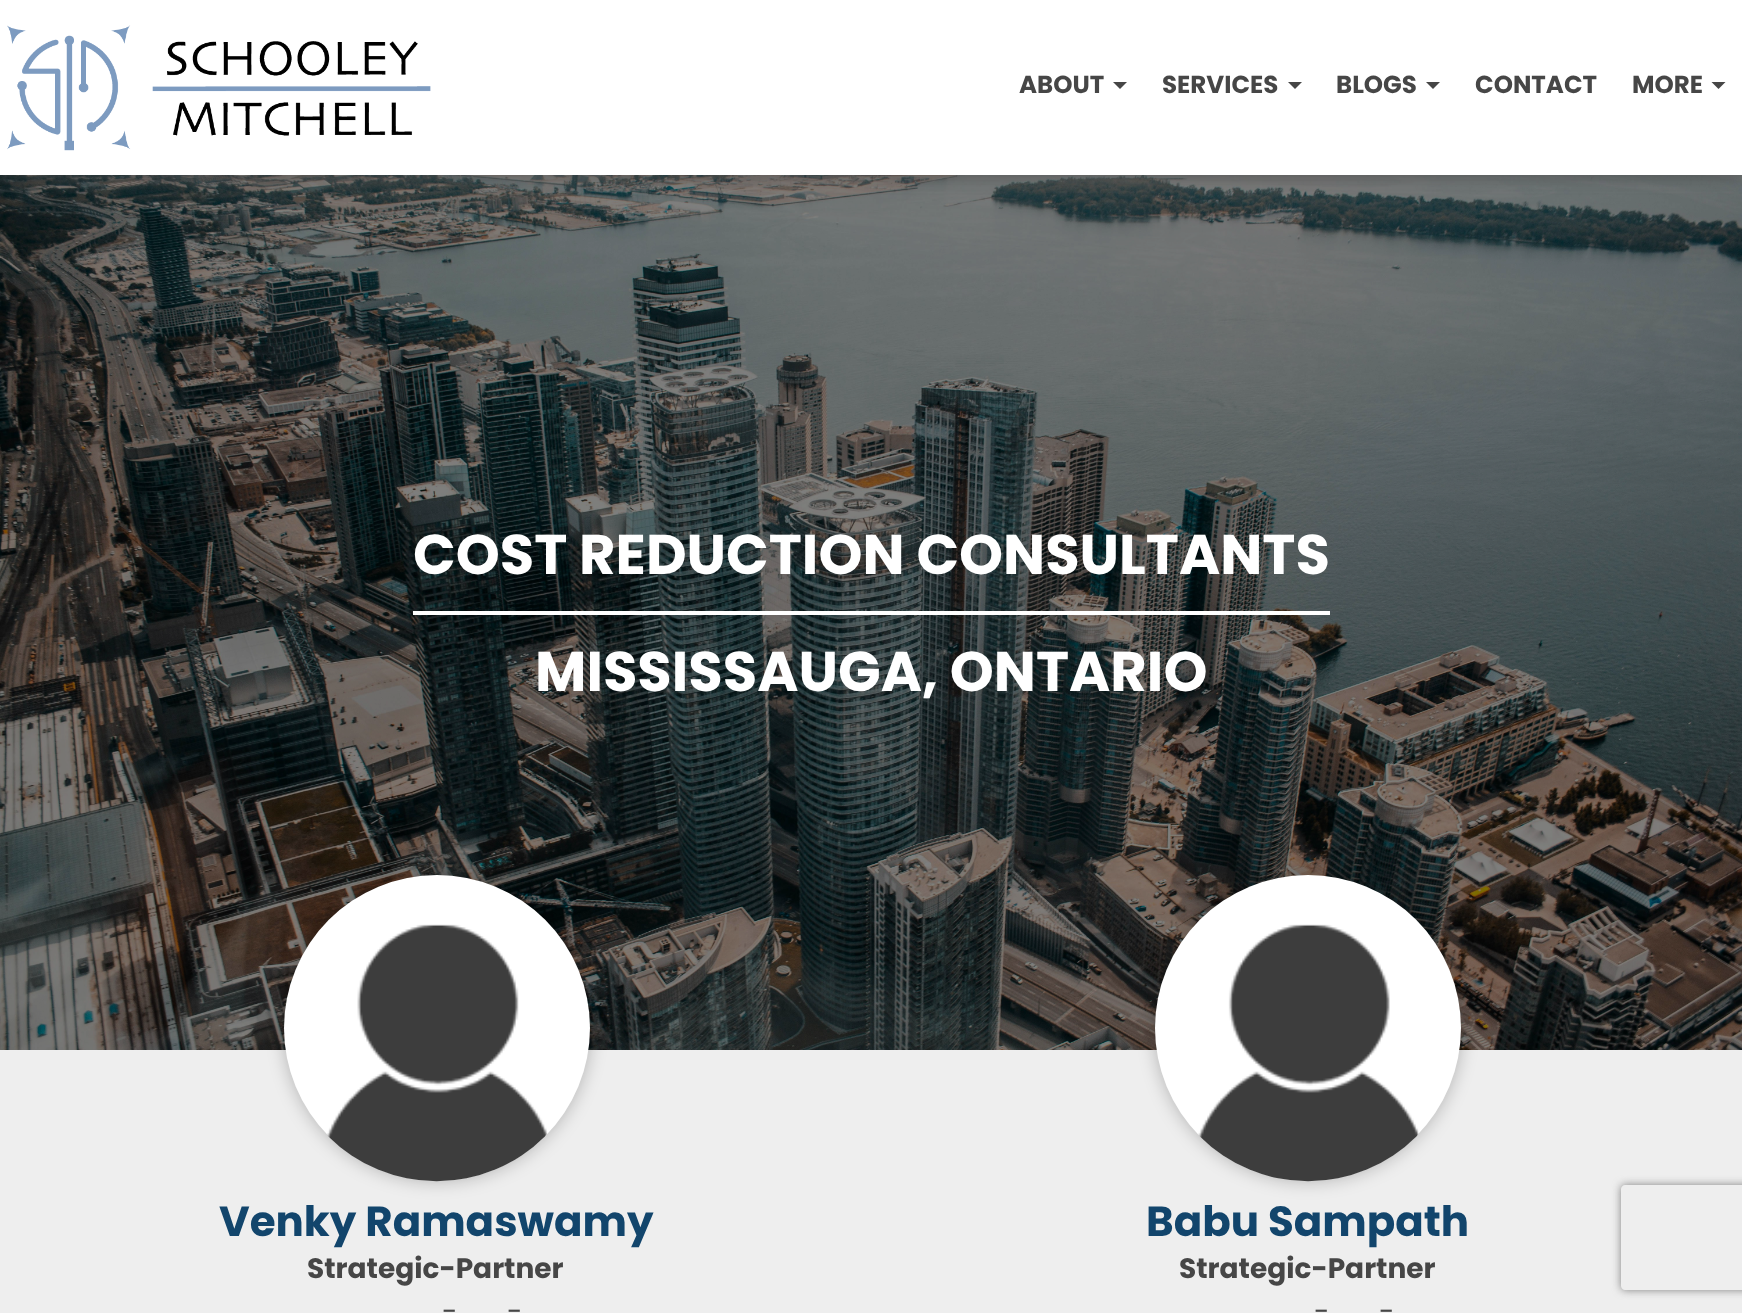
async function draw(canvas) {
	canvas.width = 1742;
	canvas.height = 1313;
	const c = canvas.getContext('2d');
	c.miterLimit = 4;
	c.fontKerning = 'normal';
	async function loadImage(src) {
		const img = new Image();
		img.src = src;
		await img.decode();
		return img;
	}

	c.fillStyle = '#eee';
	c.fillRect(0, 0, 1742, 1313);
	c.drawImage(await loadImage('img2.png'), 0, 175, 1742, 875);
	c.fillStyle = '#46464680';
	c.filter = 'blur(7px)';
	c.beginPath();
	c.rect(0, 4, 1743, 175);
	c.fill();
	c.filter = 'none';
	c.fillStyle = '#fff';
	c.fillRect(0, 0, 1742, 175);
	c.drawImage(await loadImage('img1.png'), 7, 25, 424, 126);
	c.font = 'bold 24.5px Poppins';
	c.fillStyle = '#464646';
	c.fillText('ABOUT', 1019, 93);
	c.beginPath();
	c.moveTo(1113, 82);
	c.lineTo(1127, 82);
	c.lineTo(1120, 89);
	c.closePath();
	c.fill();
	c.fillText('SERVICES', 1162, 93);
	c.beginPath();
	c.moveTo(1288, 82);
	c.lineTo(1302, 82);
	c.lineTo(1295, 89);
	c.closePath();
	c.fill();
	c.fillText('BLOGS', 1336, 93);
	c.beginPath();
	c.moveTo(1426, 82);
	c.lineTo(1440, 82);
	c.lineTo(1433, 89);
	c.closePath();
	c.fill();
	c.fillText('CONTACT', 1475, 93);
	c.fillText('MORE', 1632, 93);
	c.beginPath();
	c.moveTo(1711.5, 82);
	c.lineTo(1725.5, 82);
	c.lineTo(1718.5, 89);
	c.closePath();
	c.fill();
	c.font = 'bold 56px Poppins';
	c.fillStyle = '#fff';
	c.fillText('COST REDUCTION CONSULTANTS', 413, 574);
	c.fillRect(413, 611, 917, 4);
	c.fillText('MISSISSAUGA, ONTARIO', 535, 691);
	c.fillStyle = '#00000040';
	c.filter = 'blur(9px)';
	c.beginPath();
	c.roundRect(284, 875, 306, 306, 153);
	c.fill();
	c.filter = 'none';
	c.fillStyle = '#fff';
	c.beginPath();
	c.arc(437, 1028, 153, 0, 2 * Math.PI);
	c.fill();
	c.drawImage(await loadImage('img3.png'), 327, 924, 221, 258);
	c.font = 'bold 42px Poppins';
	c.fillStyle = '#12456c';
	c.fillText('Venky Ramaswamy', 219, 1236);
	c.font = 'bold 28px Poppins';
	c.fillStyle = '#464646';
	c.fillText('Strategic-Partner', 307, 1278);
	c.font = '28px Poppins';
	c.fillText('-', 442, 1321);
	c.fillText('-', 507, 1321);
	c.fillStyle = '#00000040';
	c.filter = 'blur(9px)';
	c.beginPath();
	c.roundRect(1155, 875, 306, 306, 153);
	c.fill();
	c.filter = 'none';
	c.fillStyle = '#fff';
	c.beginPath();
	c.arc(1308, 1028, 153, 0, 2 * Math.PI);
	c.fill();
	c.drawImage(await loadImage('img4.png'), 1198, 924, 221, 258);
	c.font = 'bold 42px Poppins';
	c.fillStyle = '#12456c';
	c.fillText('Babu Sampath', 1146, 1236);
	c.font = 'bold 28px Poppins';
	c.fillStyle = '#464646';
	c.fillText('Strategic-Partner', 1179, 1278);
	c.font = '28px Poppins';
	c.fillText('-', 1314, 1321);
	c.fillText('-', 1379, 1321);
	c.save();
	c.beginPath();
	c.moveTo(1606, 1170);
	c.lineTo(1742, 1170);
	c.lineTo(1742, 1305);
	c.lineTo(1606, 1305);
	c.closePath();
	c.moveTo(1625, 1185);
	c.lineTo(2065, 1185);
	c.bezierCurveTo(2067, 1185, 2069, 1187, 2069, 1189);
	c.lineTo(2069, 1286);
	c.bezierCurveTo(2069, 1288, 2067, 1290, 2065, 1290);
	c.lineTo(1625, 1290);
	c.bezierCurveTo(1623, 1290, 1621, 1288, 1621, 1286);
	c.lineTo(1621, 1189);
	c.bezierCurveTo(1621, 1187, 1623, 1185, 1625, 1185);
	c.closePath();
	c.clip('evenodd');
	c.fillStyle = '#808080';
	c.filter = 'blur(4.5px)';
	c.beginPath();
	c.roundRect(1621, 1185, 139, 105, 4);
	c.fill();
	c.filter = 'none';
	c.restore();
}

draw(document.querySelector('canvas'));
